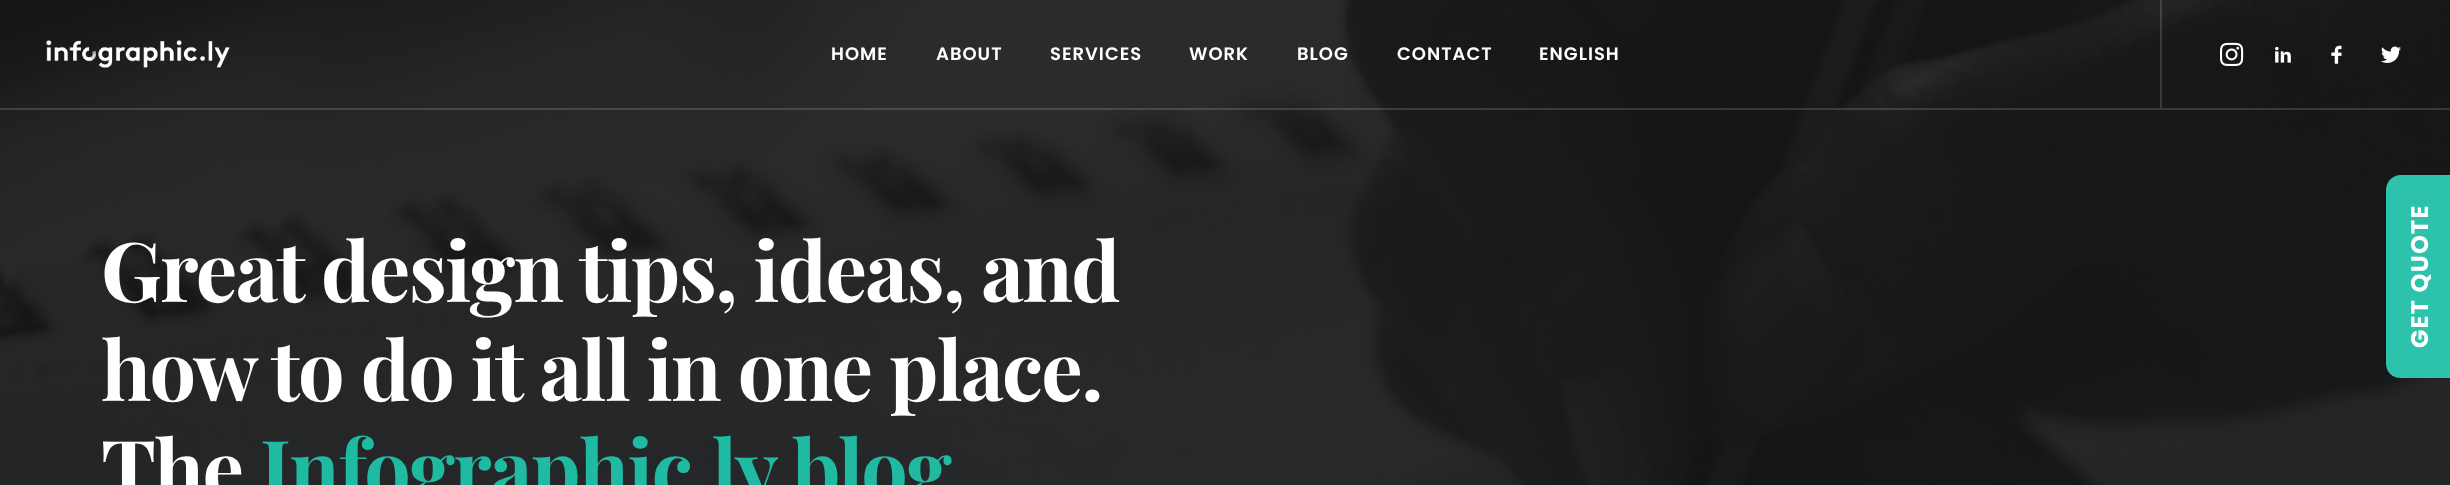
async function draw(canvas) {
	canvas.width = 2450;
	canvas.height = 485;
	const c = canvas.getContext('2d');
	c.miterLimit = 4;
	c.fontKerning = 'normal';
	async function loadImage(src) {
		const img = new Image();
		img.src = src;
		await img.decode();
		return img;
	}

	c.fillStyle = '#fff';
	c.fillRect(0, 0, 2450, 485);
	c.drawImage(await loadImage('img6.png'), 0, 0, 2450, 485);
	c.fillStyle = '#ffffff26';
	c.fillRect(0, 108, 2450, 2);
	c.drawImage(await loadImage('img1.png'), 46, 40, 184, 28);
	c.letterSpacing = '1px';
	c.font = '600 18px Poppins';
	c.fillStyle = '#fff';
	for (const [text, x, y] of [
		['HOME', 831, 60],
		['ABOUT', 936, 60],
		['SERVICES', 1050, 60],
		['WORK', 1189, 60],
		['BLOG', 1297, 60],
		['CONTACT', 1397, 60],
		['ENGLISH', 1539, 60],
	]) {
		c.fillText(text, x, y);
	}
	c.fillStyle = '#ffffff26';
	c.fillRect(2160, 0, 2, 108);
	c.drawImage(await loadImage('img2.png'), 2220, 42, 24, 24);
	c.drawImage(await loadImage('img3.png'), 2275, 46, 16, 17);
	c.drawImage(await loadImage('img4.png'), 2331, 45, 11, 19);
	c.drawImage(await loadImage('img5.png'), 2381, 46, 20, 17);
	c.letterSpacing = '-1.65px';
	c.font = 'bold 82.5px Playfair Display';
	c.fillStyle = '#fff';
	for (const [text, x, y] of [
		['Great design tips, ideas, and', 101, 302],
		['how to do it all in one place.', 101, 401],
		['The', 101, 500],
	]) {
		c.fillText(text, x, y);
	}
	c.fillStyle = '#20b9a2';
	c.fillText('Infographic.ly blog', 260, 500);
	c.fillStyle = '#2dc2ac';
	c.beginPath();
	c.moveTo(2386, 363);
	c.lineTo(2386, 190);
	c.bezierCurveTo(2386, 182, 2392, 175, 2401, 175);
	c.lineTo(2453, 175);
	c.lineTo(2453, 378);
	c.lineTo(2401, 378);
	c.bezierCurveTo(2392, 378, 2386, 372, 2386, 363);
	c.closePath();
	c.fill();
	c.letterSpacing = '1.25px';
	c.font = 'bold 24px Poppins';
	c.fillStyle = '#fff';
	c.save();
	c.translate(2428, 348);
	c.rotate(-90 * Math.PI / 180);
	c.fillText('GET QUOTE', 0, 0);
	c.restore();
}

draw(document.querySelector('canvas'));
